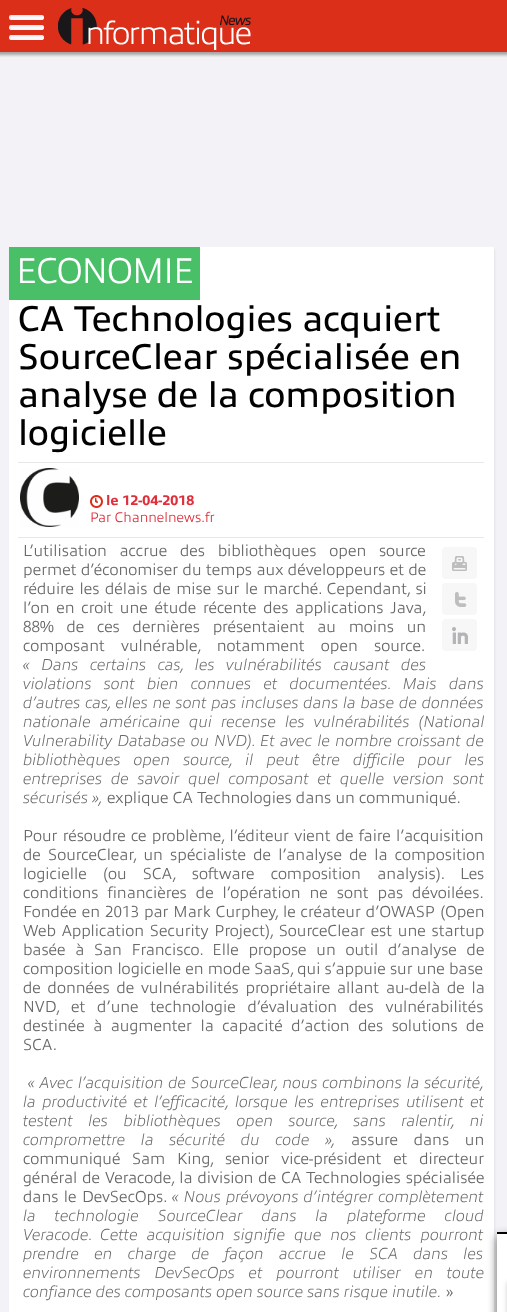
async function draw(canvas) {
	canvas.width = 507;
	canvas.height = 1312;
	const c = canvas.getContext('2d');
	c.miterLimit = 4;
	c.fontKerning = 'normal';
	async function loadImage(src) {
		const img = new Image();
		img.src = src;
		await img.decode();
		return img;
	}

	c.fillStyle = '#f3f2f6';
	c.fillRect(0, 0, 507, 1312);
	c.fillStyle = '#a3a3a4';
	c.filter = 'blur(1.5px)';
	c.beginPath();
	c.rect(-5, -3, 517, 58);
	c.fill();
	c.filter = 'none';
	c.fillStyle = '#db2f19';
	c.fillRect(0, 0, 507, 52);
	c.drawImage(await loadImage('img1.png'), 9, 15, 35, 25);
	c.drawImage(await loadImage('img2.png'), 58, 8, 193, 42);
	c.fillStyle = '#0000000f';
	c.filter = 'blur(1px)';
	c.beginPath();
	c.rect(10, 249, 485, 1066);
	c.fill();
	c.filter = 'none';
	c.fillStyle = '#fff';
	c.fillRect(9, 247, 485, 1065);
	c.fillStyle = '#49bf68';
	c.fillRect(9, 247, 191, 53);
	c.letterSpacing = '-1px';
	c.font = '300 36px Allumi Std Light';
	c.fillStyle = '#fff';
	c.fillText('ECONOMIE', 16, 283);
	c.letterSpacing = '0px';
	c.font = '36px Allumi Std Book';
	c.fillStyle = '#000';
	for (const [text, x, y] of [
		['CA Technologies acquiert', 18, 331],
		['SourceClear spécialisée en', 18, 369],
		['analyse de la composition', 18, 407],
		['logicielle', 18, 445],
	]) {
		c.fillText(text, x, y);
	}
	c.fillStyle = '#e7e7e9';
	c.fillRect(18, 462, 466, 1);
	c.fillRect(18, 537, 466, 1);
	c.drawImage(await loadImage('img3.png'), 20, 468, 59, 59);
	c.drawImage(await loadImage('img4.png'), 90, 495, 13, 13);
	c.font = '800 14px Allumi Std Book';
	c.fillStyle = '#de303c';
	c.fillText('le 12-04-2018', 106, 505);
	c.font = '300 14px Allumi Std Light';
	c.fillText('Par Channelnews.fr', 90, 522);
	c.wordSpacing = '8.5px';
	c.font = '300 16px Allumi Std Light';
	c.fillStyle = '#686868';
	c.fillText('L’utilisation accrue des bibliothèques open source', 23, 556);
	c.wordSpacing = '0.25px';
	c.fillText('permet d’économiser du temps aux développeurs et de', 23, 575);
	c.wordSpacing = '1.25px';
	c.fillText('réduire les délais de mise sur le marché. Cependant, si', 23, 594);
	c.wordSpacing = '2.5px';
	c.fillText('l’on en croit une étude récente des applications Java,', 23, 613);
	c.wordSpacing = '8.5px';
	c.fillText('88% de ces dernières présentaient au moins un', 23, 632);
	c.wordSpacing = '12px';
	c.fillText('composant vulnérable, notamment open source.', 23, 651);
	c.wordSpacing = '7.5px';
	c.font = 'italic 200 16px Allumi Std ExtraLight';
	c.fillText('« Dans certains cas, les vulnérabilités causant des', 23, 670);
	c.wordSpacing = '8.25px';
	c.fillText('violations sont bien connues et documentées. Mais dans', 23, 689);
	c.wordSpacing = '0.75px';
	c.fillText('d’autres cas, elles ne sont pas incluses dans la base de données', 23, 708);
	c.wordSpacing = '5px';
	c.fillText('nationale américaine qui recense les vulnérabilités (National', 23, 727);
	c.wordSpacing = '1.25px';
	c.fillText('Vulnerability Database ou NVD). Et avec le nombre croissant de', 23, 746);
	c.wordSpacing = '9px';
	c.fillText('bibliothèques open source, il peut être difficile pour les', 23, 765);
	c.wordSpacing = '4.75px';
	c.fillText('entreprises de savoir quel composant et quelle version sont', 23, 784);
	c.wordSpacing = '0px';
	c.fillText('sécurisés »,', 23, 803);
	c.font = '300 16px Allumi Std Light';
	c.fillText('explique CA Technologies dans un communiqué.', 107, 803);
	c.fillStyle = '#f7f7f7';
	c.beginPath();
	c.roundRect(442, 547, 35, 32, 4);
	c.fill();
	c.drawImage(await loadImage('img5.png'), 452, 556, 15, 15);
	c.beginPath();
	c.roundRect(442, 583, 35, 32, 4);
	c.fill();
	c.drawImage(await loadImage('img6.png'), 455, 592, 12, 15);
	c.beginPath();
	c.roundRect(442, 619, 35, 32, 4);
	c.fill();
	c.drawImage(await loadImage('img7.png'), 452, 627, 16, 17);
	c.wordSpacing = '1px';
	c.fillStyle = '#686868';
	c.fillText('Pour résoudre ce problème, l’éditeur vient de faire l’acquisition', 23, 841);
	c.wordSpacing = '3px';
	c.fillText('de SourceClear, un spécialiste de l’analyse de la composition', 23, 860);
	c.wordSpacing = '12px';
	c.fillText('logicielle (ou SCA, software composition analysis). Les', 23, 879);
	c.wordSpacing = '4.75px';
	c.fillText('conditions financières de l’opération ne sont pas dévoilées.', 23, 898);
	c.wordSpacing = '0.75px';
	c.fillText('Fondée en 2013 par Mark Curphey, le créateur d’OWASP (Open', 23, 917);
	c.wordSpacing = '1.5px';
	c.fillText('Web Application Security Project), SourceClear est une startup', 23, 936);
	c.wordSpacing = '5.5px';
	c.fillText('basée à San Francisco. Elle propose un outil d’analyse de', 23, 955);
	c.wordSpacing = '0px';
	c.fillText('composition logicielle en mode SaaS, qui s’appuie sur une base', 23, 974);
	c.wordSpacing = '2.5px';
	c.fillText('de données de vulnérabilités propriétaire allant au-delà de la', 23, 993);
	c.wordSpacing = '7.5px';
	c.fillText('NVD, et d’une technologie d’évaluation des vulnérabilités', 23, 1012);
	c.wordSpacing = '4.25px';
	c.fillText('destinée à augmenter la capacité d’action des solutions de', 23, 1031);
	c.wordSpacing = '0px';
	c.fillText('SCA.', 23, 1050);
	c.wordSpacing = '0.75px';
	c.font = 'italic 200 16px Allumi Std ExtraLight';
	c.fillText('« Avec l’acquisition de SourceClear, nous combinons la sécurité,', 28, 1088);
	c.wordSpacing = '2.5px';
	c.fillText('la productivité et l’efficacité, lorsque les entreprises utilisent et', 23, 1107);
	c.wordSpacing = '11.5px';
	c.fillText('testent les bibliothèques open source, sans ralentir, ni', 23, 1126);
	c.fillText('compromettre la sécurité du code »,', 23, 1145);
	c.font = '300 16px Allumi Std Light';
	c.fillText('assure dans un', 351, 1145);
	c.wordSpacing = '7.5px';
	c.fillText('communiqué Sam King, senior vice-président et directeur', 23, 1164);
	c.wordSpacing = '0.75px';
	c.fillText('général de Veracode, la division de CA Technologies spécialisée', 23, 1183);
	c.wordSpacing = '1.25px';
	c.fillText('dans le DevSecOps.', 23, 1202);
	c.wordSpacing = '1px';
	c.font = 'italic 200 16px Allumi Std ExtraLight';
	c.fillText('« Nous prévoyons d’intégrer complètement', 172, 1202);
	c.wordSpacing = '14.75px';
	c.fillText('la technologie SourceClear dans la plateforme cloud', 23, 1221);
	c.wordSpacing = '5px';
	c.fillText('Veracode. Cette acquisition signifie que nos clients pourront', 23, 1240);
	c.wordSpacing = '11.25px';
	c.fillText('prendre en charge de façon accrue le SCA dans les', 23, 1259);
	c.wordSpacing = '9.75px';
	c.fillText('environnements DevSecOps et pourront utiliser en toute', 23, 1278);
	c.wordSpacing = '0px';
	c.fillText('confiance des composants open source sans risque inutile.', 23, 1297);
	c.font = '300 16px Allumi Std Light';
	c.fillText('»', 446, 1297);
	c.fillStyle = '#666';
	c.filter = 'blur(5px)';
	c.beginPath();
	c.rect(497, 1236, 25, 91);
	c.fill();
	c.filter = 'none';
	c.fillStyle = '#fff';
	c.fillRect(497, 1234, 10, 78);
	c.fillStyle = '#000';
	c.fillRect(497, 1232, 10, 2);
	c.fillStyle = '#00000033';
	c.filter = 'blur(2px)';
	c.beginPath();
	c.roundRect(507, 1282, 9, 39, 3);
	c.fill();
	c.filter = 'none';
}

draw(document.querySelector('canvas'));
